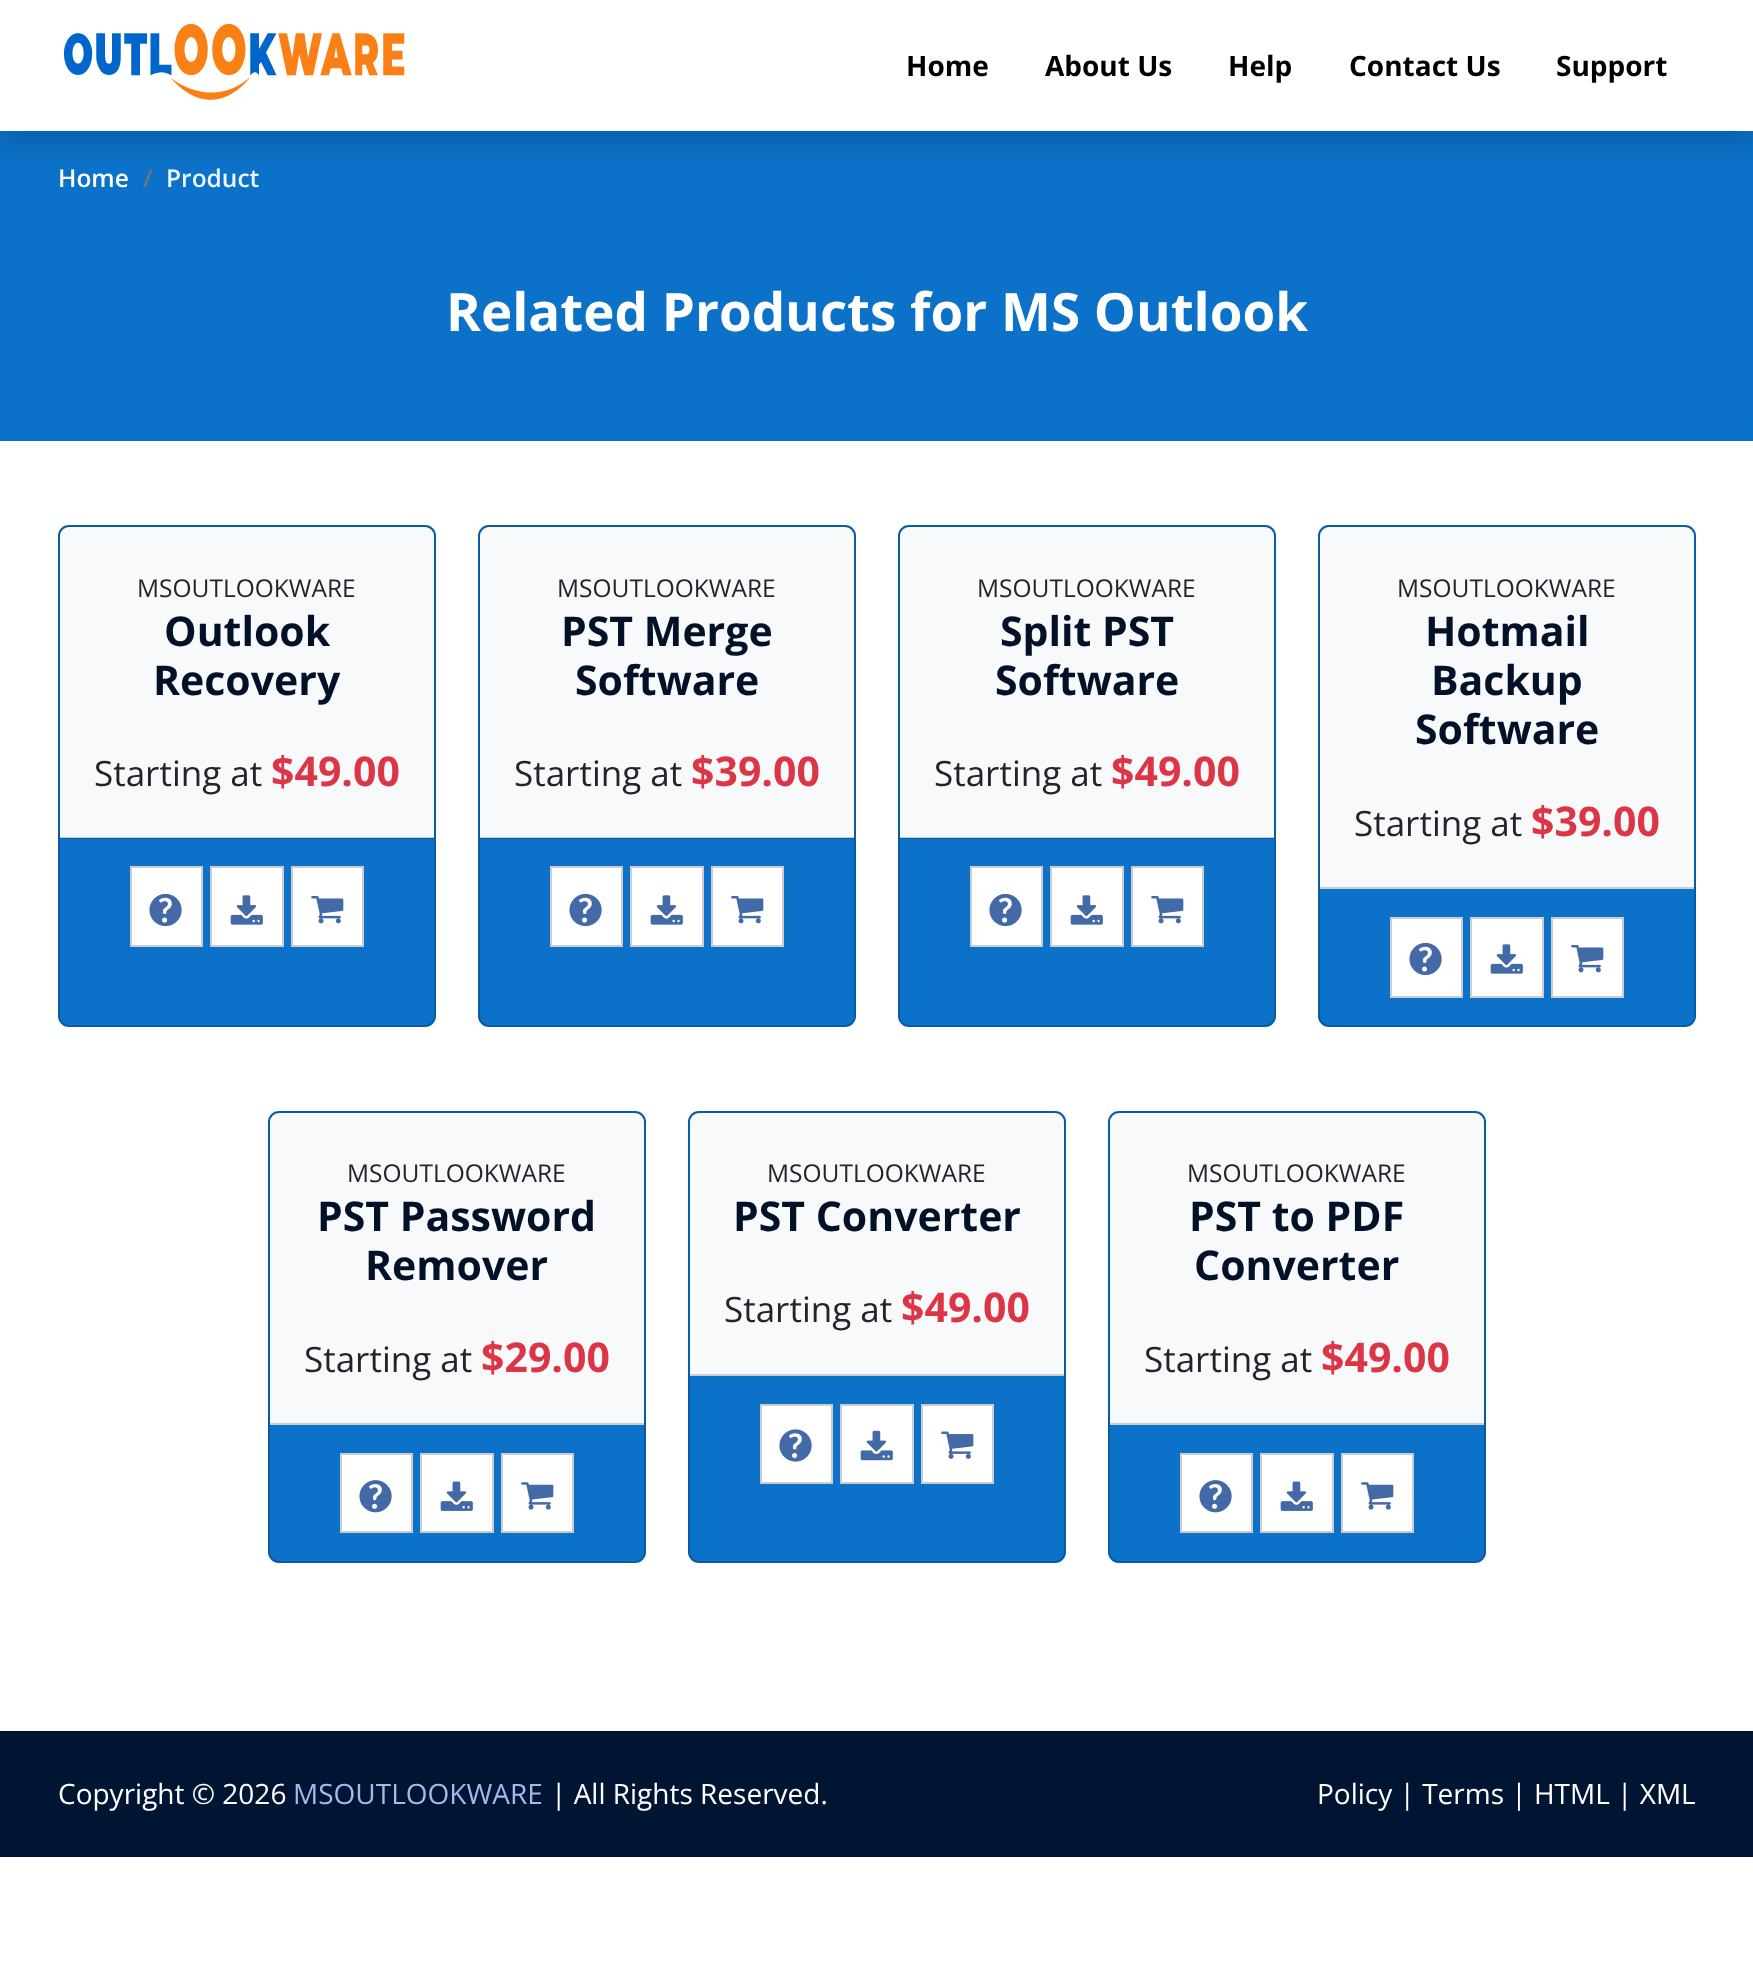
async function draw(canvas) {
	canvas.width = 1753;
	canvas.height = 1961;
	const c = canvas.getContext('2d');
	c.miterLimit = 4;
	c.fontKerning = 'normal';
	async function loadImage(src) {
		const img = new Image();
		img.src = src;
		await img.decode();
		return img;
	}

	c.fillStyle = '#fff';
	c.fillRect(0, 0, 1753, 1961);
	c.fillStyle = '#0c71c9';
	c.fillRect(0, 131, 1753, 310);
	c.save();
	c.beginPath();
	c.rect(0, 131, 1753, 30);
	c.clip();
	c.fillStyle = '#00000026';
	c.filter = 'blur(14px)';
	c.beginPath();
	c.rect(0, 14, 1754, 131);
	c.fill();
	c.filter = 'none';
	c.restore();
	c.drawImage(await loadImage('img1.png'), 63, 23, 342, 77);
	c.font = 'bold 28px Open Sans';
	c.fillStyle = '#000';
	for (const [text, x, y] of [
		['Home', 906, 76],
		['About Us', 1045, 76],
		['Help', 1228, 76],
		['Contact Us', 1349, 76],
		['Support', 1556, 76],
	]) {
		c.fillText(text, x, y);
	}
	c.font = '600 24.5px Open Sans';
	c.fillStyle = '#fff';
	c.fillText('Home', 58, 187);
	c.fillStyle = '#6c757d';
	c.fillText('/', 143, 187);
	c.fillStyle = '#ebf6ff';
	c.fillText('Product', 166, 187);
	c.font = 'bold 52.9px Open Sans';
	c.fillStyle = '#fff';
	c.fillText('Related Products for MS Outlook', 446, 331);
	c.fillStyle = '#0c71c9';
	c.beginPath();
	c.roundRect(58, 525, 378, 502, 11);
	c.fill();
	c.fillStyle = '#0a5da5';
	c.fillRect(60, 838, 374, 1);
	c.beginPath();
	c.roundRect(59, 526, 376, 500, 10);
	c.strokeStyle = '#0000002e';
	c.lineWidth = 2;
	c.stroke();
	c.fillStyle = '#f8f9fa';
	c.beginPath();
	c.roundRect(60, 527, 374, 311, [9, 9, 0, 0]);
	c.fill();
	c.fillStyle = '#cbcccd';
	c.fillRect(60, 837, 374, 1);
	c.font = '24.5px Open Sans';
	c.fillStyle = '#212529';
	c.fillText('MSOUTLOOKWARE', 137, 597);
	c.font = 'bold 41px Open Sans';
	c.fillStyle = '#021028';
	c.fillText('Outlook', 164, 646);
	c.fillText('Recovery', 153, 695);
	c.font = '35px Open Sans';
	c.fillStyle = '#212529';
	c.fillText('Starting at', 94, 786);
	c.font = 'bold 41px Open Sans';
	c.fillStyle = '#dc3545';
	c.fillText('$49.00', 271, 786);
	c.fillStyle = '#fff';
	c.beginPath();
	c.rect(131, 867, 71, 79);
	c.fill();
	c.strokeStyle = '#ccc';
	c.stroke();
	c.drawImage(await loadImage('img2.png'), 149, 893, 33, 34);
	c.beginPath();
	c.rect(211, 867, 72, 79);
	c.fill();
	c.stroke();
	c.drawImage(await loadImage('img3.png'), 230, 895, 33, 30);
	c.beginPath();
	c.rect(292, 867, 71, 79);
	c.fill();
	c.stroke();
	c.drawImage(await loadImage('img4.png'), 311, 896, 33, 28);
	c.fillStyle = '#0c71c9';
	c.beginPath();
	c.roundRect(478, 525, 378, 502, 11);
	c.fill();
	c.fillStyle = '#0a5da5';
	c.fillRect(480, 838, 374, 1);
	c.beginPath();
	c.roundRect(479, 526, 376, 500, 10);
	c.strokeStyle = '#0000002e';
	c.stroke();
	c.fillStyle = '#f8f9fa';
	c.beginPath();
	c.roundRect(480, 527, 374, 311, [9, 9, 0, 0]);
	c.fill();
	c.fillStyle = '#cbcccd';
	c.fillRect(480, 837, 374, 1);
	c.font = '24.5px Open Sans';
	c.fillStyle = '#212529';
	c.fillText('MSOUTLOOKWARE', 557, 597);
	c.font = 'bold 41px Open Sans';
	c.fillStyle = '#021028';
	c.fillText('PST Merge', 561, 646);
	c.fillText('Software', 575, 695);
	c.font = '35px Open Sans';
	c.fillStyle = '#212529';
	c.fillText('Starting at', 514, 786);
	c.font = 'bold 41px Open Sans';
	c.fillStyle = '#dc3545';
	c.fillText('$39.00', 691, 786);
	c.fillStyle = '#fff';
	c.beginPath();
	c.rect(551, 867, 71, 79);
	c.fill();
	c.strokeStyle = '#ccc';
	c.stroke();
	c.drawImage(await loadImage('img2.png'), 569, 893, 33, 34);
	c.beginPath();
	c.rect(631, 867, 72, 79);
	c.fill();
	c.stroke();
	c.drawImage(await loadImage('img3.png'), 650, 895, 33, 30);
	c.beginPath();
	c.rect(712, 867, 71, 79);
	c.fill();
	c.stroke();
	c.drawImage(await loadImage('img4.png'), 731, 896, 33, 28);
	c.fillStyle = '#0c71c9';
	c.beginPath();
	c.roundRect(898, 525, 378, 502, 11);
	c.fill();
	c.fillStyle = '#0a5da5';
	c.fillRect(900, 838, 374, 1);
	c.beginPath();
	c.roundRect(899, 526, 376, 500, 10);
	c.strokeStyle = '#0000002e';
	c.stroke();
	c.fillStyle = '#f8f9fa';
	c.beginPath();
	c.roundRect(900, 527, 374, 311, [9, 9, 0, 0]);
	c.fill();
	c.fillStyle = '#cbcccd';
	c.fillRect(900, 837, 374, 1);
	c.font = '24.5px Open Sans';
	c.fillStyle = '#212529';
	c.fillText('MSOUTLOOKWARE', 977, 597);
	c.font = 'bold 41px Open Sans';
	c.fillStyle = '#021028';
	c.fillText('Split PST', 1000, 646);
	c.fillText('Software', 995, 695);
	c.font = '35px Open Sans';
	c.fillStyle = '#212529';
	c.fillText('Starting at', 934, 786);
	c.font = 'bold 41px Open Sans';
	c.fillStyle = '#dc3545';
	c.fillText('$49.00', 1111, 786);
	c.fillStyle = '#fff';
	c.beginPath();
	c.rect(971, 867, 71, 79);
	c.fill();
	c.strokeStyle = '#ccc';
	c.stroke();
	c.drawImage(await loadImage('img2.png'), 989, 893, 33, 34);
	c.beginPath();
	c.rect(1051, 867, 72, 79);
	c.fill();
	c.stroke();
	c.drawImage(await loadImage('img3.png'), 1070, 895, 33, 30);
	c.beginPath();
	c.rect(1132, 867, 71, 79);
	c.fill();
	c.stroke();
	c.drawImage(await loadImage('img4.png'), 1151, 896, 33, 28);
	c.fillStyle = '#0c71c9';
	c.beginPath();
	c.roundRect(1318, 525, 378, 502, 11);
	c.fill();
	c.beginPath();
	c.roundRect(1319, 526, 376, 500, 10);
	c.strokeStyle = '#0000002e';
	c.stroke();
	c.fillStyle = '#f8f9fa';
	c.beginPath();
	c.roundRect(1320, 527, 374, 362, [9, 9, 0, 0]);
	c.fill();
	c.fillStyle = '#cccdce';
	c.fillRect(1320, 887, 374, 2);
	c.font = '24.5px Open Sans';
	c.fillStyle = '#212529';
	c.fillText('MSOUTLOOKWARE', 1397, 597);
	c.font = 'bold 41px Open Sans';
	c.fillStyle = '#021028';
	for (const [text, x, y] of [
		['Hotmail', 1425, 646],
		['Backup', 1431, 695],
		['Software', 1415, 744],
	]) {
		c.fillText(text, x, y);
	}
	c.font = '35px Open Sans';
	c.fillStyle = '#212529';
	c.fillText('Starting at', 1354, 836);
	c.font = 'bold 41px Open Sans';
	c.fillStyle = '#dc3545';
	c.fillText('$39.00', 1531, 836);
	c.fillStyle = '#fff';
	c.beginPath();
	c.rect(1391, 918, 71, 79);
	c.fill();
	c.strokeStyle = '#ccc';
	c.stroke();
	c.drawImage(await loadImage('img2.png'), 1409, 942, 33, 34);
	c.beginPath();
	c.rect(1471, 918, 72, 79);
	c.fill();
	c.stroke();
	c.drawImage(await loadImage('img3.png'), 1490, 944, 33, 30);
	c.beginPath();
	c.rect(1552, 918, 71, 79);
	c.fill();
	c.stroke();
	c.drawImage(await loadImage('img4.png'), 1571, 945, 33, 28);
	c.fillStyle = '#0c71c9';
	c.beginPath();
	c.roundRect(268, 1111, 378, 452, 11);
	c.fill();
	c.beginPath();
	c.roundRect(269, 1112, 376, 450, 10);
	c.strokeStyle = '#0000002e';
	c.stroke();
	c.fillStyle = '#f8f9fa';
	c.beginPath();
	c.roundRect(270, 1113, 374, 312, [9, 9, 0, 0]);
	c.fill();
	c.fillStyle = '#cccdce';
	c.fillRect(270, 1423, 374, 2);
	c.font = '24.5px Open Sans';
	c.fillStyle = '#212529';
	c.fillText('MSOUTLOOKWARE', 347, 1182);
	c.font = 'bold 41px Open Sans';
	c.fillStyle = '#021028';
	c.fillText('PST Password', 317, 1231);
	c.fillText('Remover', 365, 1280);
	c.font = '35px Open Sans';
	c.fillStyle = '#212529';
	c.fillText('Starting at', 304, 1372);
	c.font = 'bold 41px Open Sans';
	c.fillStyle = '#dc3545';
	c.fillText('$29.00', 481, 1372);
	c.fillStyle = '#fff';
	c.beginPath();
	c.rect(341, 1454, 71, 78);
	c.fill();
	c.strokeStyle = '#ccc';
	c.stroke();
	c.drawImage(await loadImage('img5.png'), 359, 1480, 33, 33);
	c.beginPath();
	c.rect(421, 1454, 72, 78);
	c.fill();
	c.stroke();
	c.drawImage(await loadImage('img6.png'), 440, 1481, 33, 30);
	c.beginPath();
	c.rect(502, 1454, 71, 78);
	c.fill();
	c.stroke();
	c.drawImage(await loadImage('img7.png'), 521, 1482, 33, 28);
	c.fillStyle = '#0c71c9';
	c.beginPath();
	c.roundRect(688, 1111, 378, 452, 11);
	c.fill();
	c.beginPath();
	c.roundRect(689, 1112, 376, 450, 10);
	c.strokeStyle = '#0000002e';
	c.stroke();
	c.fillStyle = '#f8f9fa';
	c.beginPath();
	c.roundRect(690, 1113, 374, 263, [9, 9, 0, 0]);
	c.fill();
	c.fillStyle = '#cccdce';
	c.fillRect(690, 1374, 374, 2);
	c.font = '24.5px Open Sans';
	c.fillStyle = '#212529';
	c.fillText('MSOUTLOOKWARE', 767, 1182);
	c.font = 'bold 41px Open Sans';
	c.fillStyle = '#021028';
	c.fillText('PST Converter', 733, 1231);
	c.font = '35px Open Sans';
	c.fillStyle = '#212529';
	c.fillText('Starting at', 724, 1322);
	c.font = 'bold 41px Open Sans';
	c.fillStyle = '#dc3545';
	c.fillText('$49.00', 901, 1322);
	c.fillStyle = '#fff';
	c.beginPath();
	c.rect(761, 1405, 71, 78);
	c.fill();
	c.strokeStyle = '#ccc';
	c.stroke();
	c.drawImage(await loadImage('img8.png'), 779, 1429, 33, 33);
	c.beginPath();
	c.rect(841, 1405, 72, 78);
	c.fill();
	c.stroke();
	c.drawImage(await loadImage('img9.png'), 860, 1430, 33, 31);
	c.beginPath();
	c.rect(922, 1405, 71, 78);
	c.fill();
	c.stroke();
	c.drawImage(await loadImage('img10.png'), 941, 1431, 33, 28);
	c.fillStyle = '#0c71c9';
	c.beginPath();
	c.roundRect(1108, 1111, 378, 452, 11);
	c.fill();
	c.beginPath();
	c.roundRect(1109, 1112, 376, 450, 10);
	c.strokeStyle = '#0000002e';
	c.stroke();
	c.fillStyle = '#f8f9fa';
	c.beginPath();
	c.roundRect(1110, 1113, 374, 312, [9, 9, 0, 0]);
	c.fill();
	c.fillStyle = '#cccdce';
	c.fillRect(1110, 1423, 374, 2);
	c.font = '24.5px Open Sans';
	c.fillStyle = '#212529';
	c.fillText('MSOUTLOOKWARE', 1187, 1182);
	c.font = 'bold 41px Open Sans';
	c.fillStyle = '#021028';
	c.fillText('PST to PDF', 1189, 1231);
	c.fillText('Converter', 1194, 1280);
	c.font = '35px Open Sans';
	c.fillStyle = '#212529';
	c.fillText('Starting at', 1144, 1372);
	c.font = 'bold 41px Open Sans';
	c.fillStyle = '#dc3545';
	c.fillText('$49.00', 1321, 1372);
	c.fillStyle = '#fff';
	c.beginPath();
	c.rect(1181, 1454, 71, 78);
	c.fill();
	c.strokeStyle = '#ccc';
	c.stroke();
	c.drawImage(await loadImage('img5.png'), 1199, 1480, 33, 33);
	c.beginPath();
	c.rect(1261, 1454, 72, 78);
	c.fill();
	c.stroke();
	c.drawImage(await loadImage('img6.png'), 1280, 1481, 33, 30);
	c.beginPath();
	c.rect(1342, 1454, 71, 78);
	c.fill();
	c.stroke();
	c.drawImage(await loadImage('img7.png'), 1361, 1482, 33, 28);
	c.fillStyle = '#001532';
	c.fillRect(0, 1731, 1753, 126);
	c.font = '28px Open Sans';
	c.fillStyle = '#fff';
	c.fillText('Copyright © 2026', 58, 1804);
	c.fillStyle = '#a2b8ee';
	c.fillText('MSOUTLOOKWARE', 293, 1804);
	c.fillStyle = '#fff';
	c.fillText('| All Rights Reserved.', 551, 1804);
	c.fillText('Policy | Terms | HTML | XML', 1317, 1804);
}

draw(document.querySelector('canvas'));
